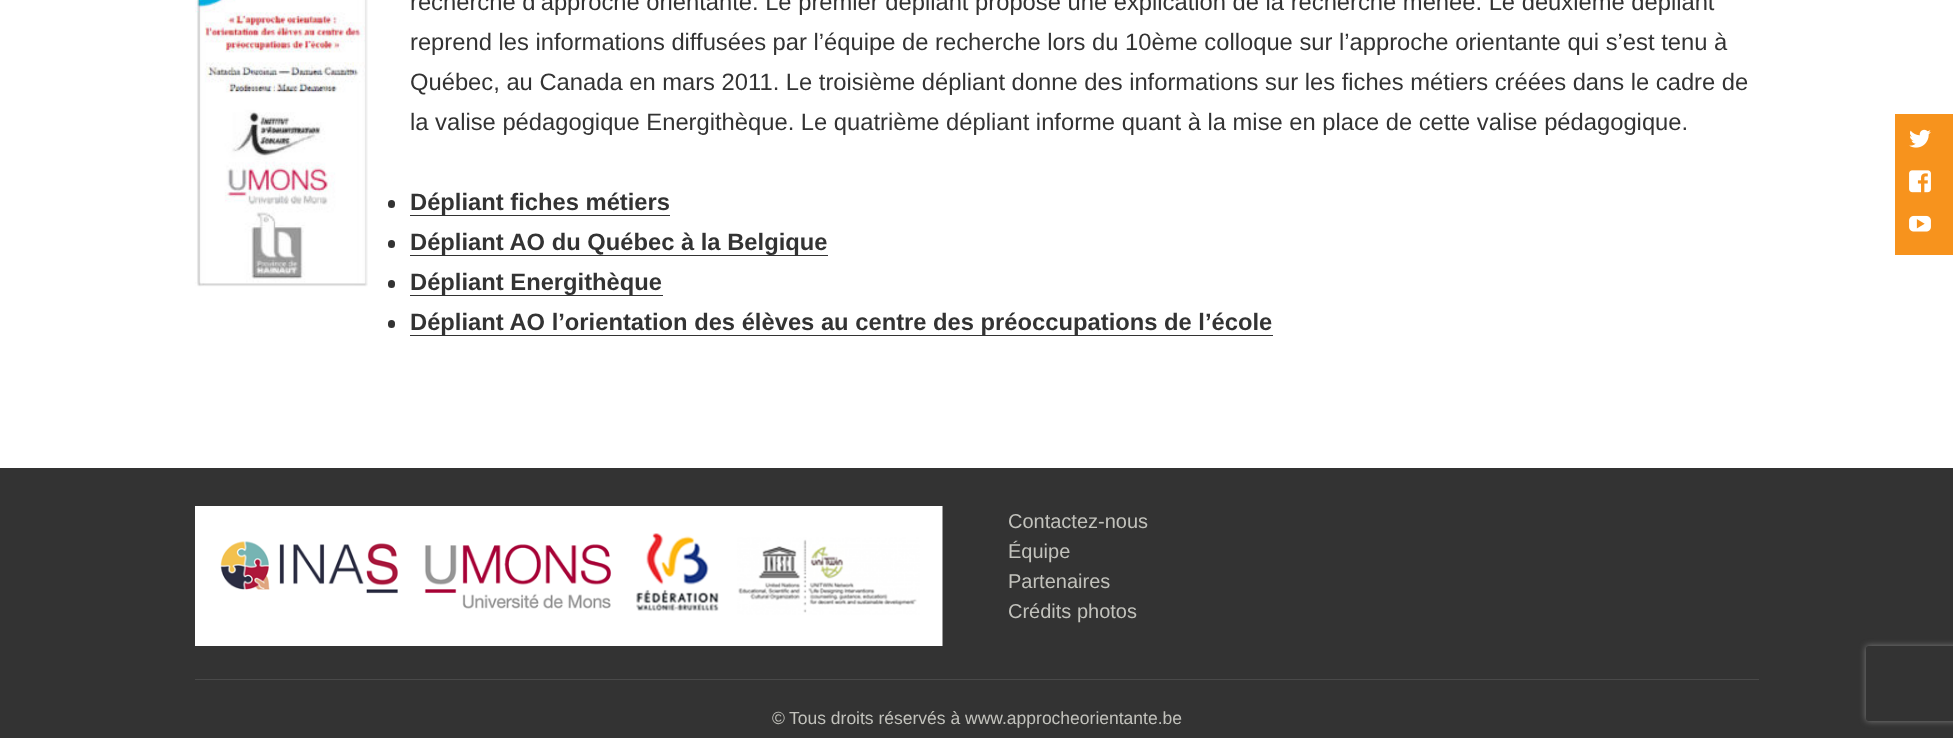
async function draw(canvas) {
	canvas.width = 1953;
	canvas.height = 738;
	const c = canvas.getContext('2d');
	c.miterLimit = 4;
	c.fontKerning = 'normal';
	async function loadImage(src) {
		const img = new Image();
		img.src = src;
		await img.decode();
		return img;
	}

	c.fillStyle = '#fff';
	c.fillRect(0, 0, 1953, 738);
	c.drawImage(await loadImage('img1.png'), 195, 0, 173, 287);
	c.font = '23.75px Liberation Sans';
	c.fillStyle = '#333';
	for (const [text, x, y] of [
		['recherche d’approche orientante. Le premier dépliant propose une explication de la recherche menée. Le deuxième dépliant', 410, 10],
		['reprend les informations diffusées par l’équipe de recherche lors du 10ème colloque sur l’approche orientante qui s’est tenu à', 410, 50],
		['Québec, au Canada en mars 2011. Le troisième dépliant donne des informations sur les fiches métiers créées dans le cadre de', 410, 90],
		['la valise pédagogique Energithèque. Le quatrième dépliant informe quant à la mise en place de cette valise pédagogique.', 410, 130],
	]) {
		c.fillText(text, x, y);
	}
	c.beginPath();
	c.roundRect(388, 200, 7, 8, 3.5);
	c.fill();
	c.font = 'bold 23.75px Liberation Sans';
	c.fillText('Dépliant fiches métiers', 410, 210);
	c.fillRect(410, 215, 260, 1);
	c.beginPath();
	c.roundRect(388, 240, 7, 8, 3.5);
	c.fill();
	c.fillText('Dépliant AO du Québec à la Belgique', 410, 250);
	c.fillRect(410, 255, 418, 1);
	c.beginPath();
	c.roundRect(388, 280, 7, 8, 3.5);
	c.fill();
	c.fillText('Dépliant Energithèque', 410, 290);
	c.fillRect(410, 295, 253, 1);
	c.beginPath();
	c.roundRect(388, 320, 7, 8, 3.5);
	c.fill();
	c.fillText('Dépliant AO l’orientation des élèves au centre des préoccupations de l’école', 410, 330);
	c.fillRect(410, 335, 863, 1);
	c.fillStyle = '#f7931d';
	c.fillRect(1895, 114, 58, 141);
	c.drawImage(await loadImage('img2.png'), 1909, 129, 22, 19);
	c.drawImage(await loadImage('img3.png'), 1909, 170, 22, 23);
	c.drawImage(await loadImage('img4.png'), 1909, 215, 22, 17);
	c.fillStyle = '#333';
	c.fillRect(0, 468, 1953, 270);
	c.drawImage(await loadImage('img5.png'), 195, 506, 748, 140);
	c.font = '20px Liberation Sans';
	c.fillStyle = '#c2c2bc';
	for (const [text, x, y] of [
		['Contactez-nous', 1008, 528],
		['Équipe', 1008, 558],
		['Partenaires', 1008, 588],
		['Crédits photos', 1008, 618],
	]) {
		c.fillText(text, x, y);
	}
	c.fillStyle = '#494949';
	c.fillRect(195, 679, 1564, 1);
	c.font = '17.5px Liberation Sans';
	c.fillStyle = '#c2c2bc';
	c.fillText('©', 772, 724);
	c.fillText('Tous droits réservés à www.approcheorientante.be', 789, 724);
	c.save();
	c.beginPath();
	c.moveTo(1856, 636);
	c.lineTo(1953, 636);
	c.lineTo(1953, 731);
	c.lineTo(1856, 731);
	c.closePath();
	c.moveTo(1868.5, 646);
	c.lineTo(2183.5, 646);
	c.bezierCurveTo(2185, 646, 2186, 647, 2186, 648.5);
	c.lineTo(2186, 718.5);
	c.bezierCurveTo(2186, 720, 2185, 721, 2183.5, 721);
	c.lineTo(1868.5, 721);
	c.bezierCurveTo(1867, 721, 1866, 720, 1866, 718.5);
	c.lineTo(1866, 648.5);
	c.bezierCurveTo(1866, 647, 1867, 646, 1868.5, 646);
	c.closePath();
	c.clip('evenodd');
	c.fillStyle = '#808080';
	c.filter = 'blur(3px)';
	c.beginPath();
	c.roundRect(1866, 646, 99, 75, 2.5);
	c.fill();
	c.filter = 'none';
	c.restore();
}

draw(document.querySelector('canvas'));
